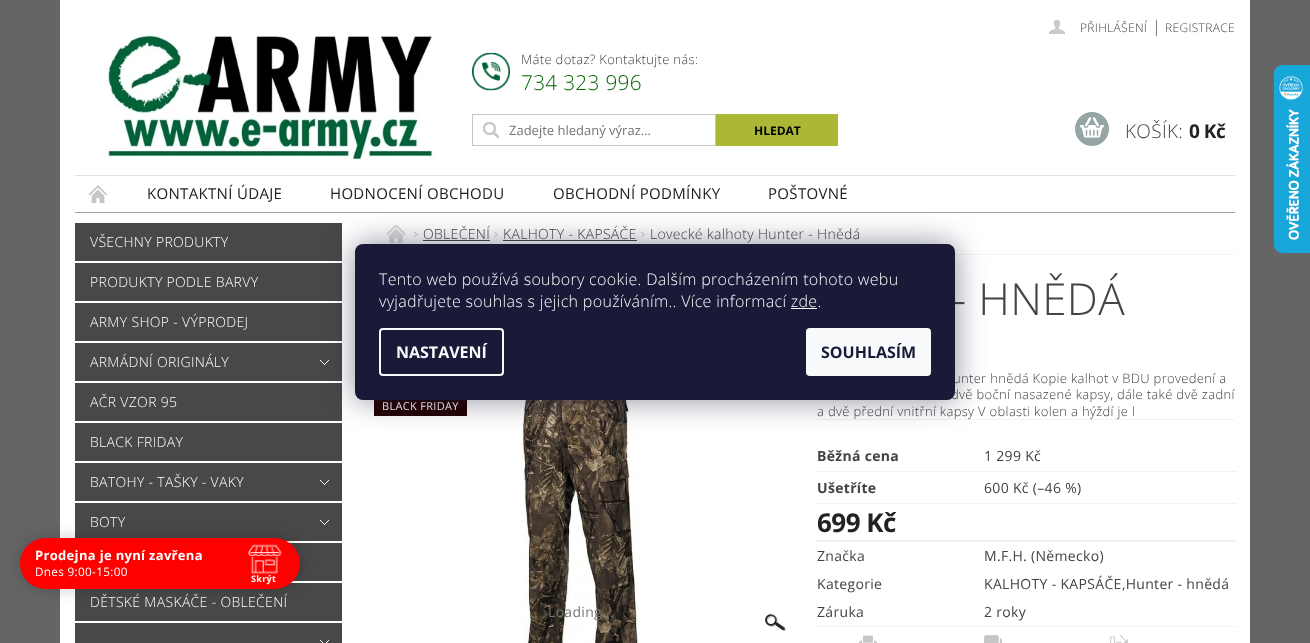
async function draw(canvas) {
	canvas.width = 1310;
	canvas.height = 643;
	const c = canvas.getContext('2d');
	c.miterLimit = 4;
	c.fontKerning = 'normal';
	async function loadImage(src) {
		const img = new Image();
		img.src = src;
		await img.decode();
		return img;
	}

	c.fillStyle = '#656565';
	c.fillRect(0, 0, 1310, 643);
	c.fillStyle = '#fff';
	c.fillRect(60, 0, 1190, 643);
	c.fillStyle = '#95a5a6';
	c.fillRect(75, 212, 1160, 1);
	c.drawImage(await loadImage('img1.png'), 107, 34, 327, 127);
	c.drawImage(await loadImage('img2.png'), 472, 52, 38, 39);
	c.letterSpacing = '0.32px';
	c.font = '300 13px Open Sans';
	c.fillStyle = '#444';
	c.fillText('Máte dotaz? Kontaktujte nás:', 521, 64);
	c.font = '300 20.75px Open Sans';
	c.fillStyle = '#036400';
	c.fillText('734 323 996', 521, 90);
	c.drawImage(await loadImage('img3.png'), 483, 122, 16, 16);
	c.strokeStyle = '#c6c6c6';
	c.strokeRect(472.5, 114.5, 243, 31);
	c.letterSpacing = '0px';
	c.font = '13px Open Sans';
	c.fillStyle = '#757575';
	c.fillText('Zadejte hledaný výraz...', 509, 135);
	c.fillStyle = '#aab835';
	c.fillRect(716, 114, 122, 32);
	c.font = 'bold 12px Open Sans';
	c.fillStyle = '#000';
	c.fillText('HLEDAT', 754, 135);
	c.drawImage(await loadImage('img4.png'), 1049, 19, 16, 15);
	c.letterSpacing = '0.32px';
	c.font = '300 12px Open Sans';
	c.fillStyle = '#444';
	c.fillText('PŘIHLÁŠENÍ', 1080, 32);
	c.font = '300 16px Open Sans';
	c.fillText('|', 1152, 32);
	c.font = '300 12px Open Sans';
	c.fillText('REGISTRACE', 1165, 32);
	c.fillStyle = '#95a5a6';
	c.beginPath();
	c.arc(1092, 129, 17, 0, 2 * Math.PI);
	c.fill();
	c.drawImage(await loadImage('img5.png'), 1080, 117, 24, 21);
	c.font = '300 19px Open Sans';
	c.fillStyle = '#444';
	c.fillText('KOŠÍK:', 1125, 138);
	c.letterSpacing = '-0.5px';
	c.font = 'bold 19px Open Sans';
	c.fillStyle = '#222';
	c.fillText('0 Kč', 1189, 138);
	c.fillStyle = '#e0e0e0';
	c.fillRect(75, 175, 1160, 1);
	c.drawImage(await loadImage('img6.png'), 89, 185, 18, 18);
	c.letterSpacing = '0.32px';
	c.font = '15px Open Sans';
	c.fillStyle = '#222';
	for (const [text, x, y] of [
		['KONTAKTNÍ ÚDAJE', 147, 199],
		['HODNOCENÍ OBCHODU', 330, 199],
		['OBCHODNÍ PODMÍNKY', 553, 199],
		['POŠTOVNÉ', 768, 199],
	]) {
		c.fillText(text, x, y);
	}
	c.fillStyle = '#484848';
	c.fillRect(75, 223, 267, 38);
	c.font = '300 14px Open Sans';
	c.fillStyle = '#fff';
	c.fillText('VŠECHNY PRODUKTY', 90, 247);
	c.fillStyle = '#484848';
	c.fillRect(75, 263, 267, 38);
	c.fillStyle = '#fff';
	c.fillText('PRODUKTY PODLE BARVY', 90, 287);
	c.fillStyle = '#484848';
	c.fillRect(75, 303, 267, 38);
	c.fillStyle = '#fff';
	c.fillText('ARMY SHOP - VÝPRODEJ', 90, 327);
	c.fillStyle = '#484848';
	c.fillRect(75, 343, 267, 38);
	c.drawImage(await loadImage('img7.png'), 320, 360, 9, 5);
	c.fillStyle = '#fff';
	c.fillText('ARMÁDNÍ ORIGINÁLY', 90, 367);
	c.fillStyle = '#484848';
	c.fillRect(75, 383, 267, 38);
	c.fillStyle = '#fff';
	c.fillText('AČR VZOR 95', 90, 407);
	c.fillStyle = '#484848';
	c.fillRect(75, 423, 267, 38);
	c.fillStyle = '#fff';
	c.fillText('BLACK FRIDAY', 90, 447);
	c.fillStyle = '#484848';
	c.fillRect(75, 463, 267, 38);
	c.drawImage(await loadImage('img7.png'), 320, 480, 9, 5);
	c.fillStyle = '#fff';
	c.fillText('BATOHY - TAŠKY - VAKY', 90, 487);
	c.fillStyle = '#484848';
	c.fillRect(75, 503, 267, 38);
	c.drawImage(await loadImage('img7.png'), 320, 520, 9, 5);
	c.fillStyle = '#fff';
	c.fillText('BOTY', 90, 527);
	c.fillStyle = '#484848';
	c.fillRect(289, 543, 53, 38);
	c.fillRect(75, 583, 267, 38);
	c.fillStyle = '#fff';
	c.fillText('DĚTSKÉ MASKÁČE - OBLEČENÍ', 90, 607);
	c.fillStyle = '#484848';
	c.fillRect(75, 623, 267, 20);
	c.drawImage(await loadImage('img8.png'), 320, 640, 9, 3);
	c.fillStyle = '#f2f2f2';
	c.fillRect(955, 254, 280, 1);
	c.drawImage(await loadImage('img9.png'), 386, 225, 20, 19);
	c.drawImage(await loadImage('img10.png'), 414, 232, 4, 5);
	c.fillStyle = '#444';
	c.fillText('OBLEČENÍ', 423, 239);
	c.fillStyle = '#484848';
	c.fillRect(423, 240, 67, 1);
	c.drawImage(await loadImage('img10.png'), 494, 232, 4, 5);
	c.fillStyle = '#444';
	c.fillText('KALHOTY - KAPSÁČE', 503, 239);
	c.fillStyle = '#484848';
	c.fillRect(503, 240, 134, 1);
	c.drawImage(await loadImage('img10.png'), 641, 232, 4, 5);
	c.fillStyle = '#444';
	c.fillText('Lovecké kalhoty Hunter - Hnědá', 650, 239);
	c.font = '300 44px Open Sans';
	c.fillText('- HNĚDÁ', 952, 315);
	c.fillStyle = '#200';
	c.fillRect(374, 400, 93, 16);
	c.font = '11px Open Sans';
	c.fillStyle = '#fff';
	c.fillText('BLACK FRIDAY', 382, 410);
	c.drawImage(await loadImage('img11.png'), 521, 400, 118, 243);
	c.font = '14px Open Sans';
	c.fillStyle = '#757575';
	c.fillText('Loading...', 548, 617);
	c.drawImage(await loadImage('img12.png'), 765, 614, 21, 18);
	c.fillStyle = '#f2f2f2';
	c.fillRect(817, 419, 418, 1);
	c.font = '300 13px Open Sans';
	c.fillStyle = '#444';
	for (const [text, x, y] of [
		['unter hnědá Kopie kalhot v BDU provedení a', 953, 383],
		['dvě boční nasazené kapsy, dále také dvě zadní', 951, 399],
		['a dvě přední vnitřní kapsy V oblasti kolen a hýždí je l', 817, 416],
	]) {
		c.fillText(text, x, y);
	}
	c.fillStyle = '#f2f2f2';
	c.fillRect(816, 471, 420, 1);
	c.font = 'bold 14px Open Sans';
	c.fillStyle = '#444';
	c.fillText('Běžná cena', 817, 461);
	c.font = '14px Open Sans';
	c.fillText('1 299 Kč', 984, 461);
	c.fillStyle = '#f2f2f2';
	c.fillRect(816, 503, 420, 1);
	c.font = 'bold 14px Open Sans';
	c.fillStyle = '#444';
	c.fillText('Ušetříte', 817, 493);
	c.font = '14px Open Sans';
	c.fillText('600 Kč (–46 %)', 984, 493);
	c.fillStyle = '#f2f2f2';
	c.fillRect(816, 540, 420, 2);
	c.letterSpacing = '-0.5px';
	c.font = 'bold 26px Open Sans';
	c.fillStyle = '#222';
	c.fillText('699 Kč', 817, 532);
	c.letterSpacing = '0.32px';
	c.font = '14px Open Sans';
	c.fillStyle = '#444';
	for (const [text, x, y] of [
		['Značka', 817, 561],
		['M.F.H. (Německo)', 984, 561],
		['Kategorie', 817, 589],
		['KALHOTY - KAPSÁČE Hunter - hnědá', 984, 589],
		[',', 1122, 589],
	]) {
		c.fillText(text, x, y);
	}
	c.fillStyle = '#f2f2f2';
	c.fillRect(816, 626, 420, 1);
	c.fillStyle = '#444';
	c.fillText('Záruka', 817, 617);
	c.fillText('2 roky', 984, 617);
	c.drawImage(await loadImage('img13.png'), 859, 635, 18, 8);
	c.drawImage(await loadImage('img14.png'), 984, 635, 18, 8);
	c.drawImage(await loadImage('img15.png'), 1110, 635, 18, 8);
	c.drawImage(await loadImage('img16.png'), 1274, 65, 36, 188);
	c.fillStyle = '#1b193980';
	c.filter = 'blur(15px)';
	c.beginPath();
	c.roundRect(355, 244, 600, 156, 8);
	c.fill();
	c.filter = 'none';
	c.fillStyle = '#1a1937';
	c.beginPath();
	c.roundRect(355, 244, 600, 156, 8);
	c.fill();
	c.font = '300 16px Open Sans';
	c.fillStyle = '#f8fafb';
	c.fillText('Tento web používá soubory cookie. Dalším procházením tohoto webu', 379, 285);
	c.fillText('vyjadřujete souhlas s jejich používáním.. Více informací zde.', 379, 307);
	c.fillRect(791, 308, 26, 1);
	c.beginPath();
	c.roundRect(380, 329, 123, 46, 3);
	c.strokeStyle = '#f8fafb';
	c.lineWidth = 2;
	c.stroke();
	c.letterSpacing = '0px';
	c.font = 'bold 16px Open Sans';
	c.fillText('NASTAVENÍ', 396, 358);
	c.beginPath();
	c.roundRect(806, 328, 125, 48, 4);
	c.fill();
	c.fillStyle = '#1a1937';
	c.fillText('SOUHLASÍM', 821, 358);
	c.fillStyle = '#00000033';
	c.filter = 'blur(7.5px)';
	c.beginPath();
	c.roundRect(20, 538, 280, 51, 25.5);
	c.fill();
	c.filter = 'none';
	c.fillStyle = '#f00';
	c.beginPath();
	c.roundRect(20, 538, 280, 51, 25.5);
	c.fill();
	c.letterSpacing = '0.32px';
	c.font = 'bold 13px Open Sans';
	c.fillStyle = '#fff';
	c.fillText('Prodejna je nyní zavřena', 35, 560);
	c.font = '11.75px Open Sans';
	c.fillText('Dnes 9:00-15:00', 35, 576);
	c.drawImage(await loadImage('img17.png'), 247, 544, 35, 30);
	c.font = 'bold 9px Open Sans';
	c.fillText('Skrýt', 251, 582);
}

draw(document.querySelector('canvas'));
